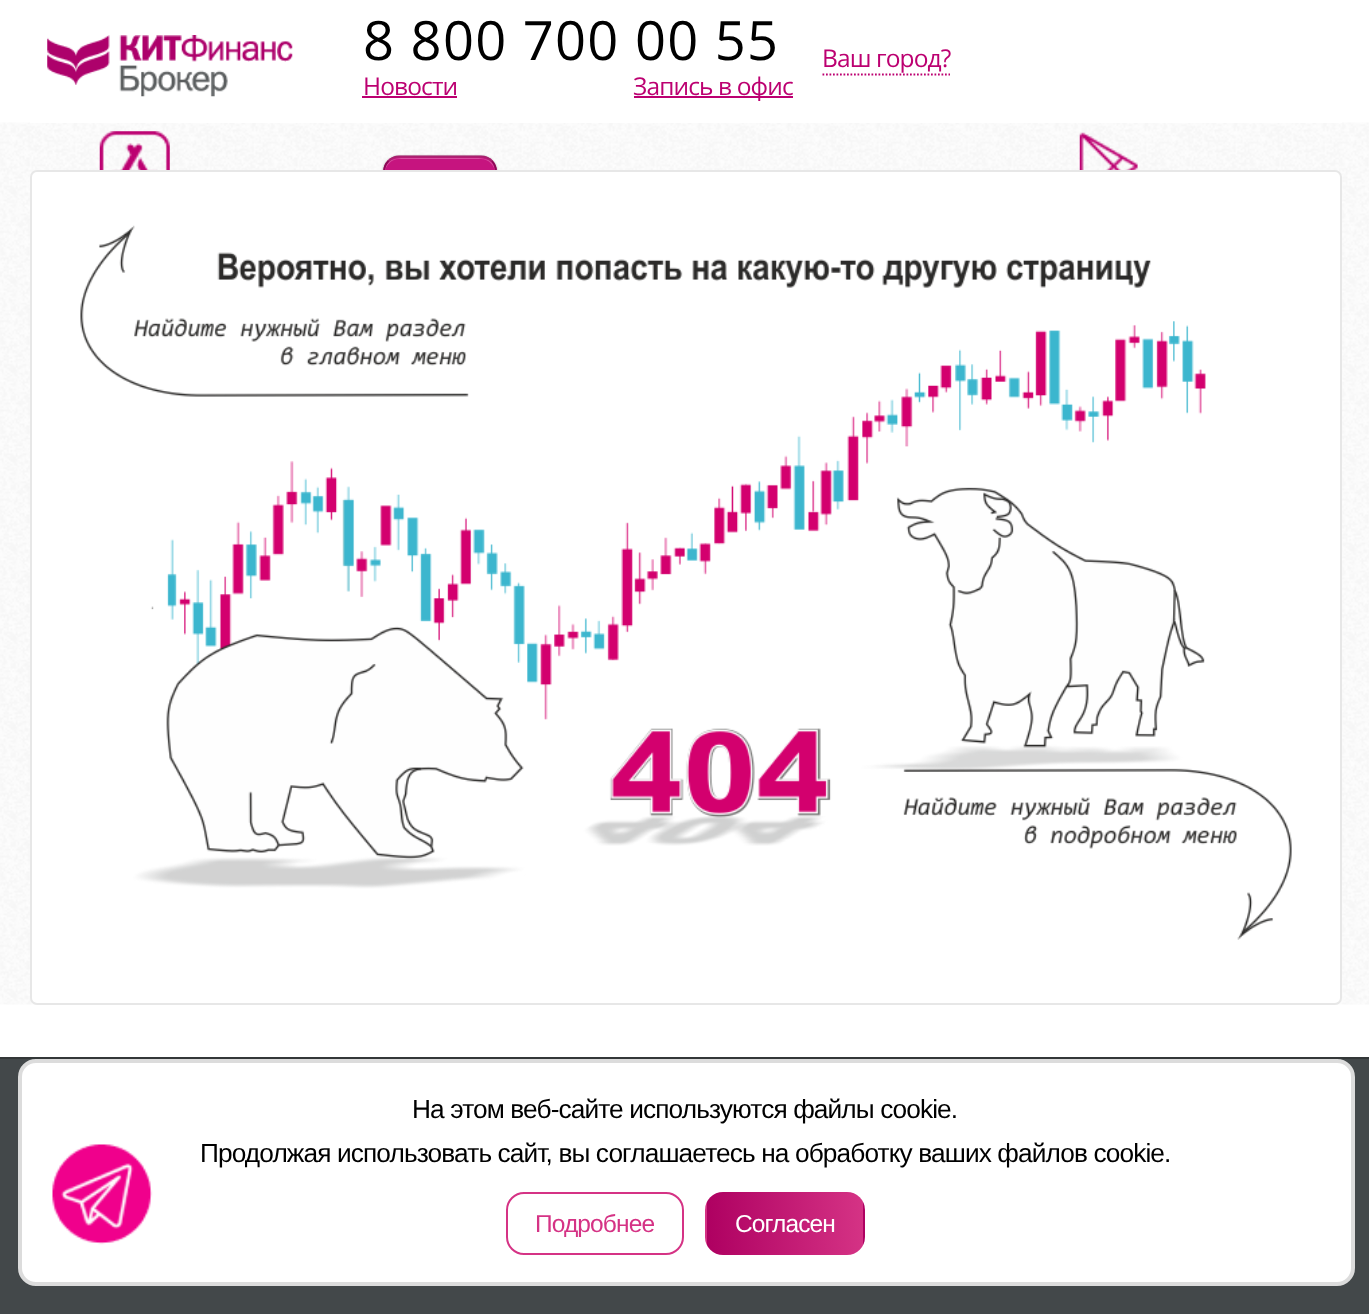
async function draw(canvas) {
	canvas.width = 1369;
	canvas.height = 1314;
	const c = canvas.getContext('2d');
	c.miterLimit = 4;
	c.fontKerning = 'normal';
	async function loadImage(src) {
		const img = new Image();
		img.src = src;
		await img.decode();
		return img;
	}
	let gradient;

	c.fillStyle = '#fff';
	c.fillRect(0, 0, 1369, 1314);
	c.drawImage(await loadImage('img5.png'), 0, 122, 1369, 883);
	c.fillRect(30, 122, 1312, 1);
	c.drawImage(await loadImage('img1.png'), 47, 35, 246, 62);
	c.letterSpacing = '1.25px';
	c.font = '54.25px Open Sans';
	c.fillStyle = '#000';
	c.fillText('8 800 700 00 55', 363, 60);
	c.letterSpacing = '-0.88px';
	c.font = '24.5px Open Sans';
	c.fillStyle = '#bc0071';
	c.fillText('Новости', 363, 95);
	c.fillRect(362, 96, 95, 2);
	c.fillRect(634, 96, 159, 2);
	c.fillText('Запись в офис', 633, 95);
	c.fillText('Ваш город?', 822, 67);
	c.beginPath();
	c.moveTo(822.5, 74.5);
	c.lineTo(950, 74.5);
	c.strokeStyle = '#bc0071';
	c.lineWidth = 1.8;
	c.setLineDash([1.75, 1.75]);
	c.stroke();
	c.drawImage(await loadImage('img2.png'), 99, 131, 71, 39);
	c.drawImage(await loadImage('img3.png'), 1079, 132, 59, 38);
	c.fillStyle = '#9a9a9a';
	c.filter = 'blur(1px)';
	c.beginPath();
	c.roundRect(383, 156, 114, 70, 16);
	c.fill();
	c.filter = 'none';
	c.drawImage(await loadImage('img4.png'), 383, 155, 114, 15);
	c.fillStyle = '#d74da0';
	c.beginPath();
	c.moveTo(399, 159);
	c.lineTo(481, 159);
	c.bezierCurveTo(489, 159, 495, 166, 495, 173);
	c.bezierCurveTo(495, 156, 480, 158, 467, 158);
	c.lineTo(413, 158);
	c.bezierCurveTo(400, 158, 385, 156, 385, 173);
	c.bezierCurveTo(385, 166, 391, 159, 399, 159);
	c.closePath();
	c.fill();
	c.beginPath();
	c.moveTo(388.5, 161);
	c.bezierCurveTo(391.5, 158, 395, 156.5, 399, 156.5);
	c.lineTo(481, 156.5);
	c.bezierCurveTo(485, 156.5, 489, 158, 492, 161);
	c.strokeStyle = '#a8226f';
	c.setLineDash([]);
	c.stroke();
	c.beginPath();
	c.moveTo(492, 161);
	c.bezierCurveTo(494.5, 164, 496, 167.5, 496, 171.5);
	c.lineTo(496, 210);
	c.bezierCurveTo(496, 214, 494.5, 217.5, 492, 220.5);
	c.strokeStyle = '#8a0b55';
	c.stroke();
	c.beginPath();
	c.moveTo(388.5, 220.5);
	c.bezierCurveTo(385.5, 217.5, 384, 214, 384, 210);
	c.lineTo(384, 171.5);
	c.bezierCurveTo(384, 167.5, 385.5, 164, 388.5, 161);
	c.stroke();
	c.fillStyle = '#fff';
	c.beginPath();
	c.roundRect(31, 171, 1310, 833, 6);
	c.fill();
	c.strokeStyle = '#e7e7e7';
	c.lineWidth = 2;
	c.stroke();
	c.drawImage(await loadImage('img6.png'), 80, 225, 1212, 715);
	c.fillStyle = '#43484a';
	c.fillRect(0, 1059, 1369, 255);
	c.fillStyle = '#333738';
	c.fillRect(0, 1057, 1369, 2);
	c.fillStyle = '#fff';
	c.beginPath();
	c.roundRect(20, 1061, 1333, 223, 16);
	c.fill();
	c.strokeStyle = '#dcdcdc';
	c.lineWidth = 4;
	c.stroke();
	c.drawImage(await loadImage('img7.png'), 52, 1144, 101, 101);
	c.font = '26.25px Liberation Sans';
	c.fillStyle = '#000';
	c.fillText('На этом веб-сайте используются файлы cookie.', 412, 1118);
	c.fillText('Продолжая использовать сайт, вы соглашаетесь на обработку ваших файлов cookie.', 200, 1162);
	c.beginPath();
	c.roundRect(507, 1193, 176, 61, 17);
	c.strokeStyle = '#d53385';
	c.lineWidth = 2;
	c.stroke();
	c.font = '24.5px Liberation Sans';
	c.fillStyle = '#d53385';
	c.fillText('Подробнее', 535, 1232);
	c.save();
	c.beginPath();
	c.roundRect(705, 1192, 160, 63, 18);
	c.clip();
	gradient = c.createLinearGradient(706, 1168, 864, 1160);
	gradient.addColorStop(0, '#ae0061');
	gradient.addColorStop(1, '#d53385');
	c.fillStyle = gradient;
	c.fillRect(707, 1192, 156, 2);
	gradient = c.createLinearGradient(550, 1227, 708, 1219);
	gradient.addColorStop(0, '#ae0061');
	gradient.addColorStop(1, '#d53385');
	c.fillStyle = gradient;
	c.fillRect(705, 1194, 2, 59);
	gradient = c.createLinearGradient(706, 1227, 864, 1219);
	gradient.addColorStop(0, '#ae0061');
	gradient.addColorStop(1, '#d53385');
	c.fillStyle = gradient;
	c.fillRect(707, 1194, 156, 59);
	gradient = c.createLinearGradient(861, 1227, 1020, 1219);
	gradient.addColorStop(0, '#ae0061');
	gradient.addColorStop(1, '#d53385');
	c.fillStyle = gradient;
	c.fillRect(863, 1194, 2, 59);
	gradient = c.createLinearGradient(706, 1287, 864, 1279);
	gradient.addColorStop(0, '#ae0061');
	gradient.addColorStop(1, '#d53385');
	c.fillStyle = gradient;
	c.fillRect(707, 1253, 156, 2);
	c.restore();
	c.fillStyle = '#fff';
	c.fillText('Согласен', 735, 1232);
}

draw(document.querySelector('canvas'));
